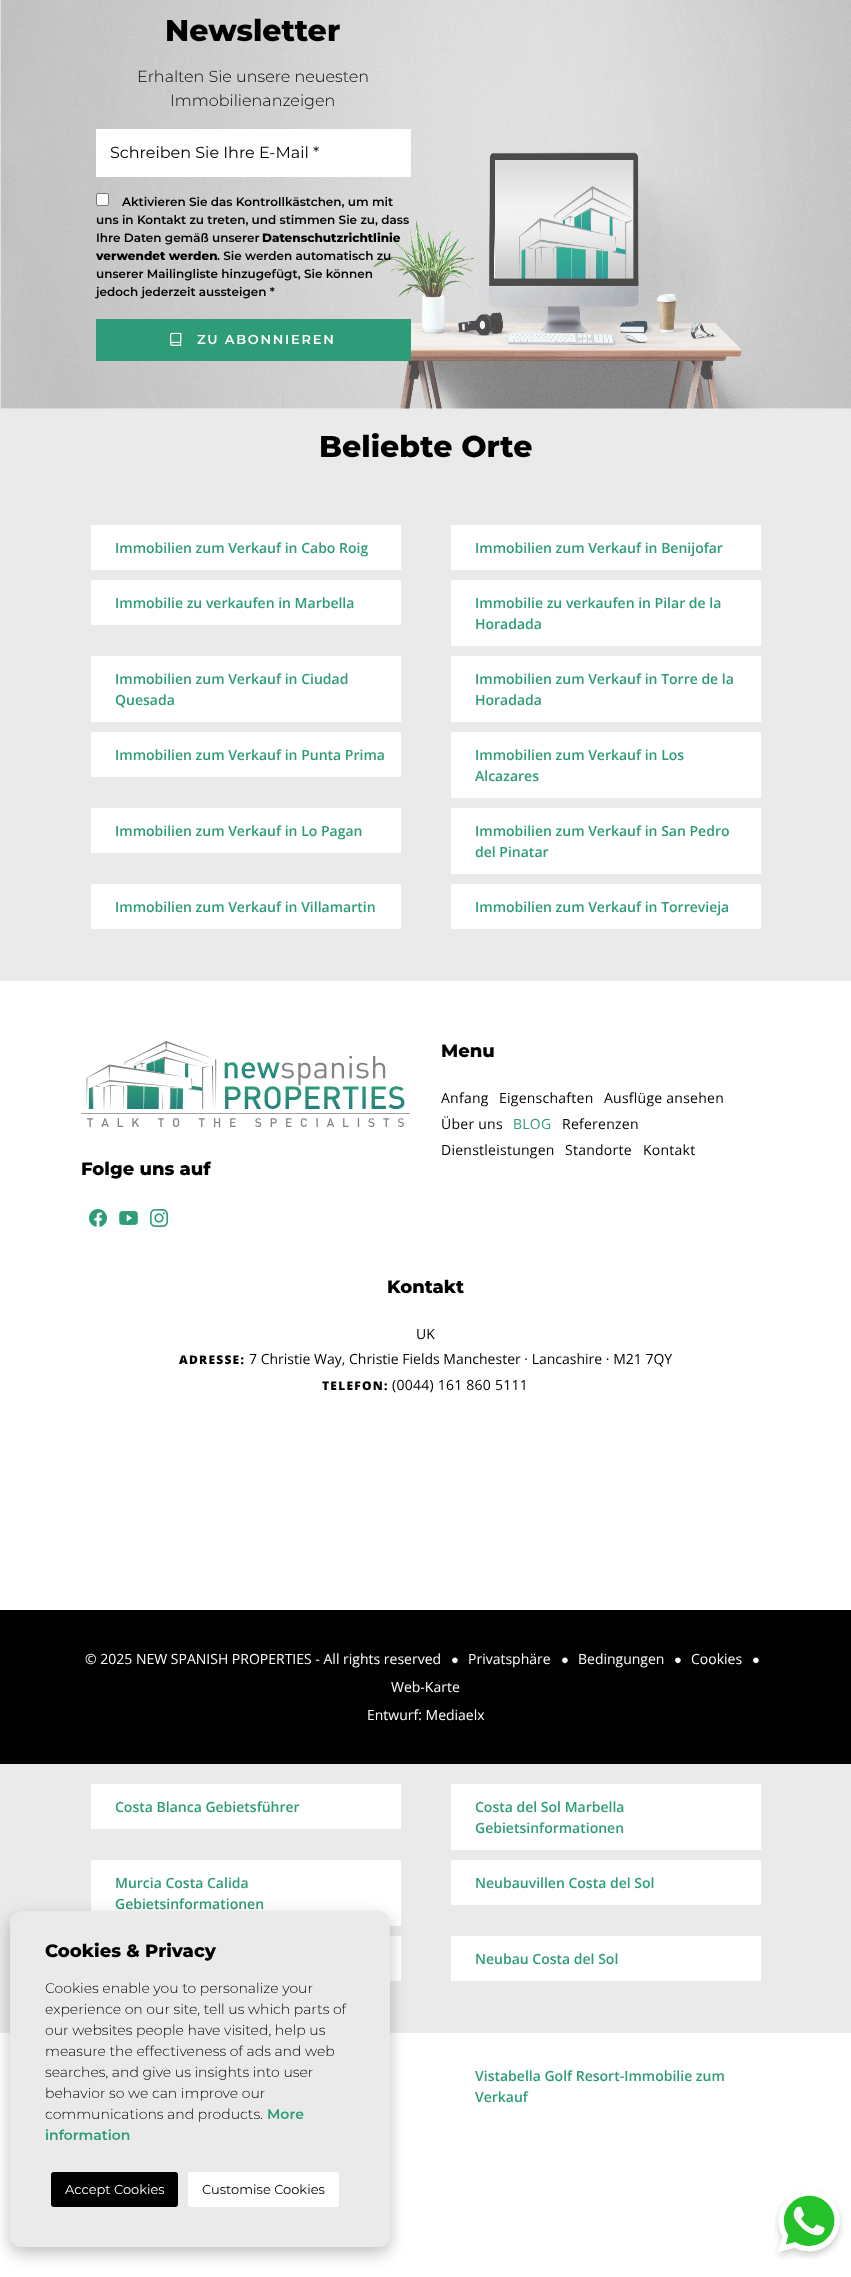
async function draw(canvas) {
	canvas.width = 851;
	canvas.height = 2277;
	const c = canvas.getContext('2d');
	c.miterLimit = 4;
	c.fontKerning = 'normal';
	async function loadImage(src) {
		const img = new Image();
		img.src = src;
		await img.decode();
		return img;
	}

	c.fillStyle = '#fff';
	c.fillRect(0, 0, 851, 2277);
	c.drawImage(await loadImage('img1.png'), 0, 0, 851, 409);
	c.font = '800 30px Montserrat';
	c.fillStyle = '#000';
	c.fillText('Newsletter', 165, 41);
	c.font = '300 16px Montserrat';
	c.fillText('Erhalten Sie unsere neuesten', 137, 82);
	c.fillText('Immobilienanzeigen', 170, 106);
	c.fillStyle = '#fff';
	c.fillRect(96, 129, 315, 48);
	c.font = '16px Montserrat';
	c.fillStyle = '#000';
	c.fillText('Schreiben Sie Ihre E-Mail *', 110, 158);
	c.fillStyle = '#fff';
	c.beginPath();
	c.roundRect(96.5, 193.5, 12, 12, 1.5);
	c.fill();
	c.strokeStyle = '#767676';
	c.stroke();
	c.font = '600 12px Montserrat';
	c.fillStyle = '#000';
	for (const [text, x, y] of [
		['Aktivieren Sie das Kontrollkästchen, um mit', 122, 206],
		['uns in Kontakt zu treten, und stimmen Sie zu, dass', 96, 224],
		['Ihre Daten gemäß unserer', 96, 242],
	]) {
		c.fillText(text, x, y);
	}
	c.font = '800 12px Montserrat';
	c.fillText('Datenschutzrichtlinie', 262, 242);
	c.fillText('verwendet werden', 96, 260);
	c.font = '600 12px Montserrat';
	for (const [text, x, y] of [
		['. Sie werden automatisch zu', 217, 260],
		['unserer Mailingliste hinzugefügt, Sie können', 96, 278],
		['jedoch jederzeit aussteigen *', 96, 296],
	]) {
		c.fillText(text, x, y);
	}
	c.fillStyle = '#2e9b79';
	c.fillRect(96, 319, 315, 42);
	c.drawImage(await loadImage('img2.png'), 170, 332, 12, 14);
	c.letterSpacing = '1.75px';
	c.font = '600 13px Montserrat';
	c.fillStyle = '#fff';
	c.fillText('ZU ABONNIEREN', 197, 344);
	c.fillStyle = '#eaeaea';
	c.fillRect(0, 409, 851, 572);
	c.letterSpacing = '0px';
	c.font = '800 30px Montserrat';
	c.fillStyle = '#000';
	c.fillText('Beliebte Orte', 319, 457);
	c.fillStyle = '#fff';
	c.fillRect(91, 525, 310, 45);
	c.font = '600 14px Open Sans';
	c.fillStyle = '#2e9b79';
	c.fillText('Immobilien zum Verkauf in Cabo Roig', 115, 553);
	c.fillStyle = '#fff';
	c.fillRect(451, 525, 310, 45);
	c.fillStyle = '#2e9b79';
	c.fillText('Immobilien zum Verkauf in Benijofar', 475, 553);
	c.fillStyle = '#fff';
	c.fillRect(91, 580, 310, 45);
	c.fillStyle = '#2e9b79';
	c.fillText('Immobilie zu verkaufen in Marbella', 115, 608);
	c.fillStyle = '#fff';
	c.fillRect(451, 580, 310, 66);
	c.fillStyle = '#2e9b79';
	c.fillText('Immobilie zu verkaufen in Pilar de la', 475, 608);
	c.fillText('Horadada', 475, 629);
	c.fillStyle = '#fff';
	c.fillRect(91, 656, 310, 66);
	c.fillStyle = '#2e9b79';
	c.fillText('Immobilien zum Verkauf in Ciudad', 115, 684);
	c.fillText('Quesada', 115, 705);
	c.fillStyle = '#fff';
	c.fillRect(451, 656, 310, 66);
	c.fillStyle = '#2e9b79';
	c.fillText('Immobilien zum Verkauf in Torre de la', 475, 684);
	c.fillText('Horadada', 475, 705);
	c.fillStyle = '#fff';
	c.fillRect(91, 732, 310, 45);
	c.fillStyle = '#2e9b79';
	c.fillText('Immobilien zum Verkauf in Punta Prima', 115, 760);
	c.fillStyle = '#fff';
	c.fillRect(451, 732, 310, 66);
	c.fillStyle = '#2e9b79';
	c.fillText('Immobilien zum Verkauf in Los', 475, 760);
	c.fillText('Alcazares', 475, 781);
	c.fillStyle = '#fff';
	c.fillRect(91, 808, 310, 45);
	c.fillStyle = '#2e9b79';
	c.fillText('Immobilien zum Verkauf in Lo Pagan', 115, 836);
	c.fillStyle = '#fff';
	c.fillRect(451, 808, 310, 66);
	c.fillStyle = '#2e9b79';
	c.fillText('Immobilien zum Verkauf in San Pedro', 475, 836);
	c.fillText('del Pinatar', 475, 857);
	c.fillStyle = '#fff';
	c.fillRect(91, 884, 310, 45);
	c.fillStyle = '#2e9b79';
	c.fillText('Immobilien zum Verkauf in Villamartin', 115, 912);
	c.fillStyle = '#fff';
	c.fillRect(451, 884, 310, 45);
	c.fillStyle = '#2e9b79';
	c.fillText('Immobilien zum Verkauf in Torrevieja', 475, 912);
	c.font = '800 18px Montserrat';
	c.fillStyle = '#000';
	c.fillText('Menu', 441, 1057);
	c.letterSpacing = '0.25px';
	c.font = '14px Open Sans';
	for (const [text, x, y] of [
		['Anfang', 441, 1103],
		['Eigenschaften', 499, 1103],
		['Ausflüge ansehen', 604, 1103],
		['Über uns', 441, 1129],
	]) {
		c.fillText(text, x, y);
	}
	c.fillStyle = '#2e9b79';
	c.fillText('BLOG', 513, 1129);
	c.fillStyle = '#000';
	for (const [text, x, y] of [
		['Referenzen', 562, 1129],
		['Dienstleistungen', 441, 1155],
		['Standorte', 565, 1155],
		['Kontakt', 643, 1155],
	]) {
		c.fillText(text, x, y);
	}
	c.drawImage(await loadImage('img3.png'), 81, 1041, 329, 86);
	c.letterSpacing = '0px';
	c.font = '800 18px Montserrat';
	c.fillText('Folge uns auf', 81, 1175);
	c.drawImage(await loadImage('img4.png'), 89, 1209, 18, 18);
	c.drawImage(await loadImage('img5.png'), 119, 1211, 19, 14);
	c.drawImage(await loadImage('img6.png'), 150, 1209, 18, 18);
	c.fillText('Kontakt', 387, 1293);
	c.font = '14px Open Sans';
	c.fillText('UK', 416, 1339);
	c.letterSpacing = '1.25px';
	c.font = '800 12px Open Sans';
	c.fillText('ADRESSE:', 179, 1364);
	c.letterSpacing = '0px';
	c.font = '14px Open Sans';
	c.fillText('7 Christie Way, Christie Fields Manchester · Lancashire · M21 7QY', 249, 1364);
	c.letterSpacing = '1.25px';
	c.font = '800 12px Open Sans';
	c.fillText('TELEFON:', 322, 1390);
	c.letterSpacing = '0.25px';
	c.font = '14px Open Sans';
	c.fillText('(0044) 161 860 5111', 392, 1390);
	c.fillRect(0, 1610, 851, 154);
	c.letterSpacing = '0px';
	c.fillStyle = '#fff';
	c.fillText('© 2025 NEW SPANISH PROPERTIES - All rights reserved', 85, 1664);
	c.font = '13px Liberation Sans';
	c.fillText('●', 451, 1664);
	c.font = '14px Open Sans';
	c.fillText('Privatsphäre', 468, 1664);
	c.font = '13px Liberation Sans';
	c.fillText('●', 561, 1664);
	c.font = '14px Open Sans';
	c.fillText('Bedingungen', 578, 1664);
	c.font = '13px Liberation Sans';
	c.fillText('●', 674, 1664);
	c.font = '14px Open Sans';
	c.fillText('Cookies', 691, 1664);
	c.font = '13px Liberation Sans';
	c.fillText('●', 752, 1664);
	c.font = '14px Open Sans';
	c.fillText('Web-Karte', 391, 1692);
	c.fillText('Entwurf: Mediaelx', 367, 1720);
	c.fillStyle = '#eaeaea';
	c.fillRect(0, 1764, 851, 269);
	c.fillStyle = '#fff';
	c.fillRect(91, 1784, 310, 45);
	c.font = '600 14px Open Sans';
	c.fillStyle = '#2e9b79';
	c.fillText('Costa Blanca Gebietsführer', 115, 1812);
	c.fillStyle = '#fff';
	c.fillRect(451, 1784, 310, 66);
	c.fillStyle = '#2e9b79';
	c.fillText('Costa del Sol Marbella', 475, 1812);
	c.fillText('Gebietsinformationen', 475, 1833);
	c.fillStyle = '#fff';
	c.fillRect(91, 1860, 310, 66);
	c.fillStyle = '#2e9b79';
	c.fillText('Murcia Costa Calida', 115, 1888);
	c.fillText('Gebietsinformationen', 115, 1909);
	c.fillStyle = '#fff';
	c.fillRect(451, 1860, 310, 45);
	c.fillStyle = '#2e9b79';
	c.fillText('Neubauvillen Costa del Sol', 475, 1888);
	c.fillStyle = '#fff';
	c.fillRect(390, 1936, 11, 45);
	c.fillRect(451, 1936, 310, 45);
	c.fillStyle = '#2e9b79';
	c.fillText('Neubau Costa del Sol', 475, 1964);
	c.fillStyle = '#00000040';
	c.filter = 'blur(8px)';
	c.beginPath();
	c.roundRect(10, 1917, 380, 336, 12);
	c.fill();
	c.filter = 'none';
	c.fillStyle = '#eaeaea';
	c.beginPath();
	c.roundRect(10, 1911, 380, 336, 12);
	c.fill();
	c.font = '800 18px Montserrat';
	c.fillStyle = '#000';
	c.fillText('Cookies & Privacy', 45, 1957);
	c.font = '300 14px Montserrat';
	for (const [text, x, y] of [
		['Cookies enable you to personalize your', 45, 1993],
		['experience on our site, tell us which parts of', 45, 2014],
		['our websites people have visited, help us', 45, 2035],
		['measure the effectiveness of ads and web', 45, 2056],
		['searches, and give us insights into user', 45, 2077],
		['behavior so we can improve our', 45, 2098],
		['communications and products.', 45, 2119],
	]) {
		c.fillText(text, x, y);
	}
	c.font = '600 14px Montserrat';
	c.fillStyle = '#2e9b79';
	c.fillText('More', 267, 2119);
	c.fillText('information', 45, 2140);
	c.fillStyle = '#000';
	c.beginPath();
	c.roundRect(51, 2172, 127, 35, 3);
	c.fill();
	c.font = '13px Montserrat';
	c.fillStyle = '#fff';
	c.fillText('Accept Cookies', 65, 2194);
	c.beginPath();
	c.roundRect(188, 2172, 151, 35, 3);
	c.fill();
	c.fillStyle = '#000';
	c.fillText('Customise Cookies', 202, 2194);
	c.font = '600 14px Open Sans';
	c.fillStyle = '#2e9b79';
	c.fillText('Vistabella Golf Resort-Immobilie zum', 475, 2081);
	c.fillText('Verkauf', 475, 2102);
	c.drawImage(await loadImage('img7.png'), 774, 2190, 70, 69);
}

draw(document.querySelector('canvas'));
